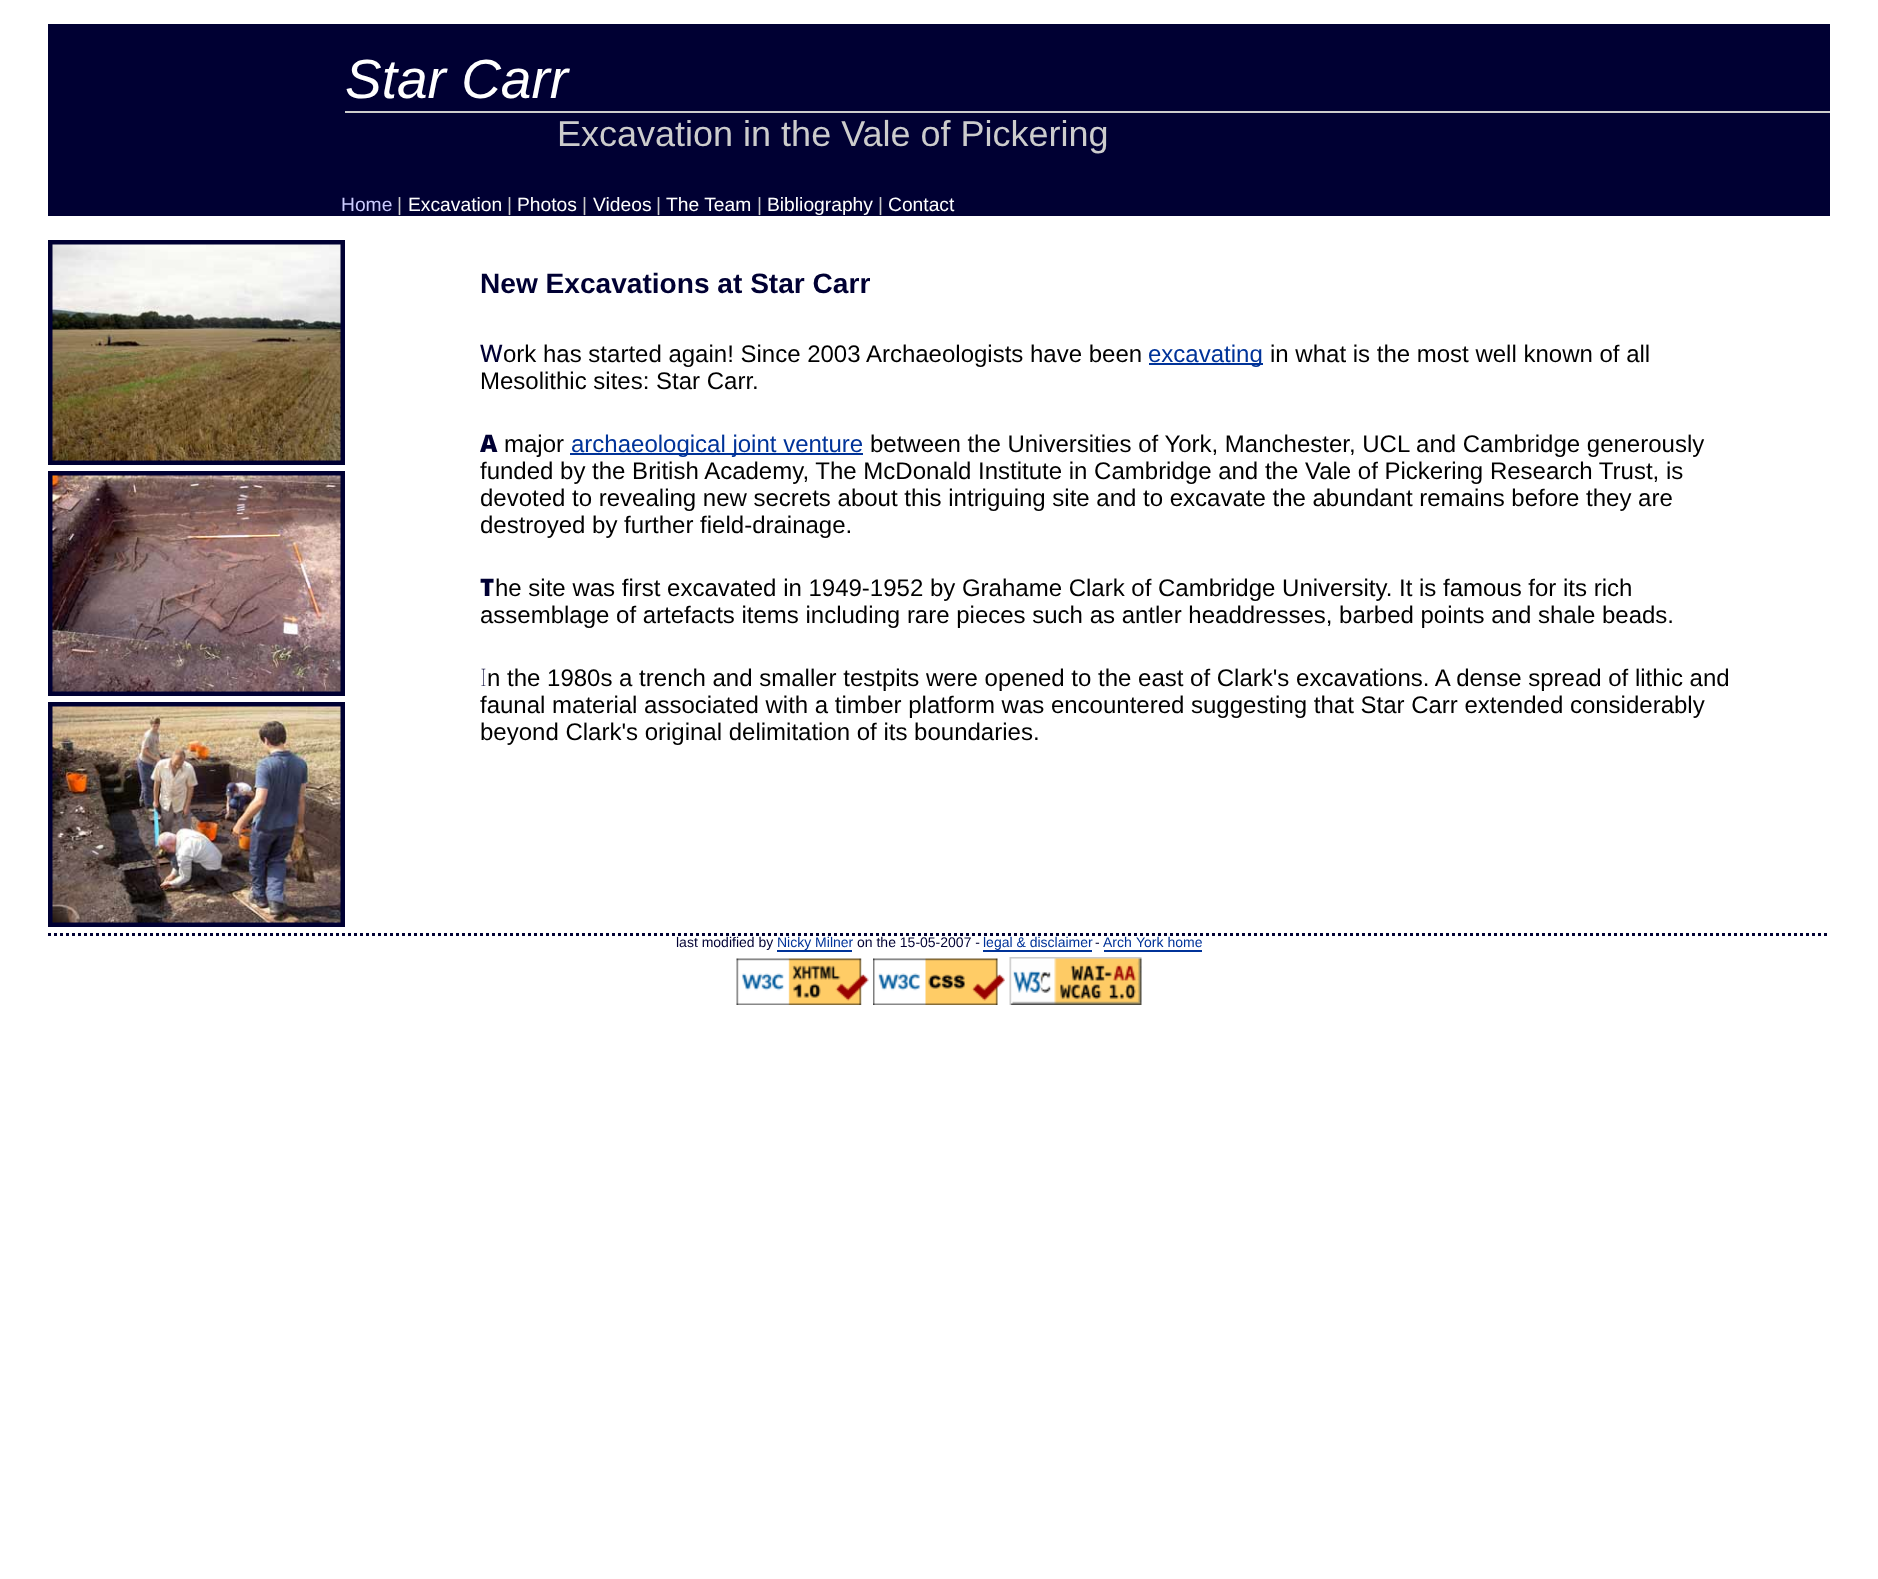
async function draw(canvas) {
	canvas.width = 1878;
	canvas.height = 1579;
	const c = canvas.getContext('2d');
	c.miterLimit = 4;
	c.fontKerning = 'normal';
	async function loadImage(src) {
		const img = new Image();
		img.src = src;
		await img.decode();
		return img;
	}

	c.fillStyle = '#fff';
	c.fillRect(0, 0, 1878, 1579);
	c.fillStyle = '#003';
	c.fillRect(48, 24, 1782, 192);
	c.font = 'italic 55px Liberation Sans';
	c.fillStyle = '#fff';
	c.fillText('Star Carr', 345, 98);
	c.fillStyle = '#ccc';
	c.fillRect(341, 111, 1489, 2);
	c.font = '36px Liberation Sans';
	c.fillText('Excavation in the Vale of Pickering', 557, 146);
	c.font = '19.25px Liberation Sans';
	c.fillStyle = '#ccf';
	c.fillText('Home', 341, 211);
	c.fillStyle = '#ccc';
	c.fillText('|', 397, 211);
	c.fillStyle = '#fff';
	c.fillText('Excavation', 408, 211);
	c.fillStyle = '#ccc';
	c.fillText('|', 507, 211);
	c.fillStyle = '#fff';
	c.fillText('Photos', 517, 211);
	c.fillStyle = '#ccc';
	c.fillText('|', 582, 211);
	c.fillStyle = '#fff';
	c.fillText('Videos', 593, 211);
	c.fillStyle = '#ccc';
	c.fillText('|', 656, 211);
	c.fillStyle = '#fff';
	c.fillText('The Team', 666, 211);
	c.fillStyle = '#ccc';
	c.fillText('|', 757, 211);
	c.fillStyle = '#fff';
	c.fillText('Bibliography', 767, 211);
	c.fillStyle = '#ccc';
	c.fillText('|', 878, 211);
	c.fillStyle = '#fff';
	c.fillText('Contact', 888, 211);
	c.fillStyle = '#003';
	c.fillRect(341, 111, 4, 2);
	c.strokeStyle = '#003';
	c.lineWidth = 5;
	c.strokeRect(50.5, 242.5, 292, 220);
	c.drawImage(await loadImage('img1.png'), 52, 244, 289, 217);
	c.strokeRect(50.5, 473.5, 292, 220);
	c.drawImage(await loadImage('img2.png'), 52, 475, 289, 217);
	c.strokeRect(50.5, 704.5, 292, 220);
	c.drawImage(await loadImage('img3.png'), 52, 706, 289, 217);
	c.font = 'bold 28.1px Liberation Sans';
	c.fillText('New Excavations at Star Carr', 480, 293);
	c.font = '500 24px Noto Sans';
	c.fillText('W', 480, 362);
	c.font = '24px Liberation Sans';
	c.fillStyle = '#000';
	c.fillText('ork has started again! Since 2003 Archaeologists have been', 503, 362);
	c.fillStyle = '#039';
	c.fillRect(1149, 363, 114, 2);
	c.fillText('excavating', 1148, 362);
	c.fillStyle = '#000';
	c.fillText('in what is the most well known of all', 1270, 362);
	c.fillText('Mesolithic sites: Star Carr.', 480, 389);
	c.font = '900 24px Noto Sans';
	c.fillStyle = '#003';
	c.fillText('A', 480, 452);
	c.font = '24px Liberation Sans';
	c.fillStyle = '#000';
	c.fillText('major', 504, 452);
	c.fillStyle = '#039';
	c.fillRect(570, 453, 293, 2);
	c.fillText('archaeological joint venture', 571, 452);
	c.fillStyle = '#000';
	for (const [text, x, y] of [
		['between the Universities of York, Manchester, UCL and Cambridge generously', 870, 452],
		['funded by the British Academy, The McDonald Institute in Cambridge and the Vale of Pickering Research Trust, is', 480, 479],
		['devoted to revealing new secrets about this intriguing site and to excavate the abundant remains before they are', 480, 506],
		['destroyed by further field-drainage.', 480, 533],
	]) {
		c.fillText(text, x, y);
	}
	c.font = '900 24px Noto Sans';
	c.fillStyle = '#003';
	c.fillText('T', 480, 596);
	c.font = '24px Liberation Sans';
	c.fillStyle = '#000';
	c.fillText('he site was first excavated in 1949-1952 by Grahame Clark of Cambridge University. It is famous for its rich', 495, 596);
	c.fillText('assemblage of artefacts items including rare pieces such as antler headdresses, barbed points and shale beads.', 480, 623);
	c.font = '100 24px Noto Sans';
	c.fillStyle = '#003';
	c.fillText('I', 480, 686);
	c.font = '24px Liberation Sans';
	c.fillStyle = '#000';
	for (const [text, x, y] of [
		['n the 1980s a trench and smaller testpits were opened to the east of Clark\'s excavations. A dense spread of lithic and', 487, 686],
		['faunal material associated with a timber platform was encountered suggesting that Star Carr extended considerably', 480, 713],
		['beyond Clark\'s original delimitation of its boundaries.', 480, 740],
	]) {
		c.fillText(text, x, y);
	}
	c.beginPath();
	c.moveTo(48, 934.5);
	c.lineTo(1830, 934.5);
	c.lineWidth = 3;
	c.setLineDash([3, 3]);
	c.stroke();
	c.font = '14px Liberation Sans';
	c.fillStyle = '#003';
	c.fillText('last modified by', 676, 947);
	c.fillStyle = '#039';
	c.fillText('Nicky Milner', 777, 947);
	c.fillRect(777, 950, 75, 2);
	c.fillStyle = '#003';
	c.fillText('on the 15-05-2007 -', 857, 947);
	c.fillStyle = '#039';
	c.fillText('legal & disclaimer', 983, 947);
	c.fillRect(983, 950, 109, 2);
	c.fillStyle = '#003';
	c.fillText('-', 1095, 947);
	c.fillStyle = '#039';
	c.fillText('Arch', 1103, 947);
	c.fillRect(1104, 950, 98, 2);
	c.fillText('York home', 1136, 947);
	c.drawImage(await loadImage('img4.png'), 736, 958, 133, 47);
	c.drawImage(await loadImage('img5.png'), 873, 958, 132, 47);
	c.drawImage(await loadImage('img6.png'), 1009, 957, 133, 48);
}

draw(document.querySelector('canvas'));
